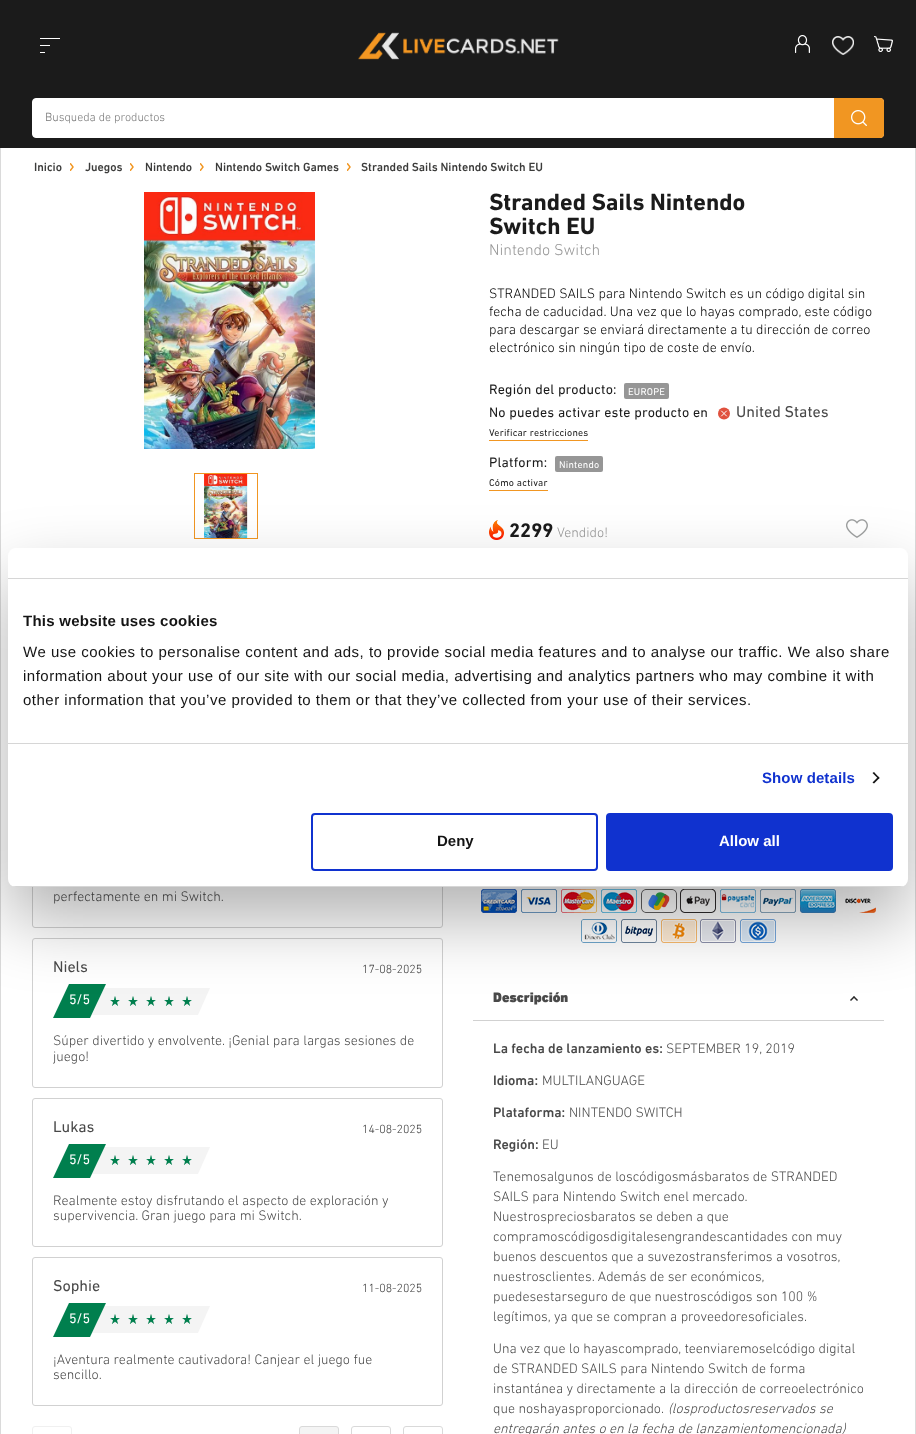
async function draw(canvas) {
	canvas.width = 916;
	canvas.height = 1434;
	const c = canvas.getContext('2d');
	c.miterLimit = 4;
	c.fontKerning = 'normal';
	async function loadImage(src) {
		const img = new Image();
		img.src = src;
		await img.decode();
		return img;
	}

	c.fillStyle = '#fff';
	c.fillRect(0, 0, 916, 1434);
	for (const [x, y, w, h, color] of [
		[915, 141, 1, 1293, '#dadada'],
		[0, 141, 1, 1293, '#dadada'],
		[0, 0, 916, 148, '#1b1b1b'],
	]) {
		c.fillStyle = color;
		c.fillRect(x, y, w, h);
	}
	c.drawImage(await loadImage('img1.png'), 795, 35, 15, 18);
	c.drawImage(await loadImage('img2.png'), 832, 36, 22, 19);
	c.drawImage(await loadImage('img3.png'), 874, 36, 19, 16);
	for (const [x, y, w, h, color] of [
		[40, 38, 20, 1, '#fff'],
		[40, 45, 10, 1, '#fff'],
		[40, 52, 5, 1, '#fff'],
	]) {
		c.fillStyle = color;
		c.fillRect(x, y, w, h);
	}
	c.drawImage(await loadImage('img4.png'), 358, 32, 201, 28);
	c.beginPath();
	c.roundRect(32.5, 98.5, 851, 39, 3.5);
	c.fill();
	c.strokeStyle = '#fff';
	c.stroke();
	c.font = '300 12px DIN Next';
	c.fillStyle = '#757575';
	c.fillText('Busqueda de productos', 45, 121);
	c.fillStyle = '#f19622';
	c.beginPath();
	c.roundRect(834, 98, 50, 40, [0, 4, 4, 0]);
	c.fill();
	c.drawImage(await loadImage('img5.png'), 851, 110, 16, 16);
	c.font = '500 12px DIN Next';
	c.fillStyle = '#3c3c3b';
	c.fillText('Inicio', 34, 171);
	c.drawImage(await loadImage('img6.png'), 70, 163, 4, 8);
	c.fillText('Juegos', 85, 171);
	c.drawImage(await loadImage('img6.png'), 130, 163, 4, 8);
	c.fillText('Nintendo', 145, 171);
	c.drawImage(await loadImage('img6.png'), 200, 163, 4, 8);
	c.fillText('Nintendo Switch Games', 215, 171);
	c.drawImage(await loadImage('img6.png'), 347, 163, 4, 8);
	c.fillText('Stranded Sails Nintendo Switch EU', 361, 171);
	c.drawImage(await loadImage('img7.png'), 144, 192, 171, 257);
	c.strokeStyle = '#f19622';
	c.strokeRect(194.5, 473.5, 63, 65);
	c.drawImage(await loadImage('img8.png'), 204, 474, 44, 64);
	c.beginPath();
	c.roundRect(32.5, 779.5, 410, 148, 2.5);
	c.strokeStyle = '#d1d1d1';
	c.stroke();
	c.font = '300 14px DIN Next';
	c.fillStyle = '#494949';
	c.fillText('perfectamente en mi Switch.', 53, 901);
	c.beginPath();
	c.roundRect(32.5, 938.5, 410, 149, 2.5);
	c.stroke();
	c.font = '16px DIN Next';
	c.fillText('Niels', 53, 972);
	c.font = '300 12px DIN Next';
	c.fillStyle = '#333';
	c.fillText('17-08-2025', 362, 973);
	c.fillStyle = '#f4f4f4';
	c.beginPath();
	c.moveTo(104, 988);
	c.lineTo(210, 988);
	c.lineTo(198, 1015);
	c.lineTo(92, 1015);
	c.closePath();
	c.fill();
	c.fillStyle = '#007f4e';
	c.beginPath();
	c.moveTo(69, 984);
	c.lineTo(106, 984);
	c.lineTo(90, 1018);
	c.lineTo(53, 1018);
	c.closePath();
	c.fill();
	c.font = '14px DIN Next';
	c.fillStyle = '#fff';
	c.fillText('5/5', 69, 1004);
	c.drawImage(await loadImage('img9.png'), 110, 996, 10, 10);
	c.drawImage(await loadImage('img9.png'), 128, 996, 10, 10);
	c.drawImage(await loadImage('img9.png'), 146, 996, 10, 10);
	c.drawImage(await loadImage('img9.png'), 164, 996, 10, 10);
	c.drawImage(await loadImage('img9.png'), 182, 996, 10, 10);
	c.font = '300 14px DIN Next';
	c.fillStyle = '#494949';
	c.fillText('Súper divertido y envolvente. ¡Genial para largas sesiones de', 53, 1045);
	c.fillText('juego!', 53, 1061);
	c.beginPath();
	c.roundRect(32.5, 1098.5, 410, 148, 2.5);
	c.stroke();
	c.font = '16px DIN Next';
	c.fillText('Lukas', 53, 1132);
	c.font = '300 12px DIN Next';
	c.fillStyle = '#333';
	c.fillText('14-08-2025', 362, 1133);
	c.fillStyle = '#f4f4f4';
	c.beginPath();
	c.moveTo(104, 1147);
	c.lineTo(210, 1147);
	c.lineTo(198, 1174);
	c.lineTo(92, 1174);
	c.closePath();
	c.fill();
	c.fillStyle = '#007f4e';
	c.beginPath();
	c.moveTo(69, 1144);
	c.lineTo(106, 1144);
	c.lineTo(90, 1178);
	c.lineTo(53, 1178);
	c.closePath();
	c.fill();
	c.font = '14px DIN Next';
	c.fillStyle = '#fff';
	c.fillText('5/5', 69, 1164);
	c.drawImage(await loadImage('img9.png'), 110, 1155, 10, 10);
	c.drawImage(await loadImage('img9.png'), 128, 1155, 10, 10);
	c.drawImage(await loadImage('img9.png'), 146, 1155, 10, 10);
	c.drawImage(await loadImage('img9.png'), 164, 1155, 10, 10);
	c.drawImage(await loadImage('img9.png'), 182, 1155, 10, 10);
	c.font = '300 14px DIN Next';
	c.fillStyle = '#494949';
	c.fillText('Realmente estoy disfrutando el aspecto de exploración y', 53, 1205);
	c.fillText('supervivencia. Gran juego para mi Switch.', 53, 1220);
	c.beginPath();
	c.roundRect(32.5, 1257.5, 410, 148, 2.5);
	c.stroke();
	c.font = '16px DIN Next';
	c.fillText('Sophie', 53, 1291);
	c.font = '300 12px DIN Next';
	c.fillStyle = '#333';
	c.fillText('11-08-2025', 362, 1292);
	c.fillStyle = '#f4f4f4';
	c.beginPath();
	c.moveTo(104, 1306);
	c.lineTo(210, 1306);
	c.lineTo(198, 1333);
	c.lineTo(92, 1333);
	c.closePath();
	c.fill();
	c.fillStyle = '#007f4e';
	c.beginPath();
	c.moveTo(69, 1303);
	c.lineTo(106, 1303);
	c.lineTo(90, 1337);
	c.lineTo(53, 1337);
	c.closePath();
	c.fill();
	c.font = '14px DIN Next';
	c.fillStyle = '#fff';
	c.fillText('5/5', 69, 1323);
	c.drawImage(await loadImage('img9.png'), 110, 1314, 10, 10);
	c.drawImage(await loadImage('img9.png'), 128, 1314, 10, 10);
	c.drawImage(await loadImage('img9.png'), 146, 1314, 10, 10);
	c.drawImage(await loadImage('img9.png'), 164, 1314, 10, 10);
	c.drawImage(await loadImage('img9.png'), 182, 1314, 10, 10);
	c.font = '300 14px DIN Next';
	c.fillStyle = '#494949';
	c.fillText('¡Aventura realmente cautivadora! Canjear el juego fue', 53, 1364);
	c.fillText('sencillo.', 53, 1379);
	c.beginPath();
	c.roundRect(32.5, 1426.5, 39, 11, 2.5);
	c.strokeStyle = '#f0f0f0';
	c.stroke();
	c.fillStyle = '#f4f4f4';
	c.beginPath();
	c.roundRect(299.5, 1426.5, 39, 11, 2.5);
	c.fill();
	c.strokeStyle = '#d9d9d9';
	c.stroke();
	c.beginPath();
	c.roundRect(351.5, 1426.5, 39, 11, 2.5);
	c.stroke();
	c.beginPath();
	c.roundRect(403.5, 1426.5, 39, 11, 2.5);
	c.stroke();
	c.font = 'bold 24px DIN Next';
	c.fillStyle = '#1b1b1b';
	c.fillText('Stranded Sails Nintendo', 489, 210);
	c.fillText('Switch EU', 489, 234);
	c.font = '300 16px DIN Next';
	c.fillStyle = '#969696';
	c.fillText('Nintendo Switch', 489, 255);
	c.font = '300 14px DIN Next';
	c.fillStyle = '#000';
	for (const [text, x, y] of [
		['STRANDED SAILS para Nintendo Switch es un código digital sin', 489, 298],
		['fecha de caducidad. Una vez que lo hayas comprado, este código', 489, 316],
		['para descargar se enviará directamente a tu dirección de correo', 489, 334],
		['electrónico sin ningún tipo de coste de envío.', 489, 352],
	]) {
		c.fillText(text, x, y);
	}
	c.letterSpacing = '0.2px';
	c.font = '14px DIN Next';
	c.fillStyle = '#1b1b1b';
	c.fillText('Región del producto:', 489, 394);
	c.fillStyle = '#969696';
	c.beginPath();
	c.roundRect(624, 383, 45, 16, 2);
	c.fill();
	c.font = '10px DIN Next';
	c.fillStyle = '#fff';
	c.fillText('EUROPE', 628, 395);
	c.font = '14px DIN Next';
	c.fillStyle = '#1b1b1b';
	c.fillText('No puedes activar este producto en', 489, 417);
	c.drawImage(await loadImage('img10.png'), 718, 407, 12, 13);
	c.letterSpacing = '0px';
	c.font = '16px DIN Next';
	c.fillStyle = '#494949';
	c.fillText('United States', 736, 417);
	c.letterSpacing = '0.2px';
	c.font = '10px DIN Next';
	c.fillStyle = '#1b1b1b';
	c.fillText('Verificar restricciones', 489, 436);
	c.fillStyle = '#f19622';
	c.fillRect(489, 440, 99, 1);
	c.font = '14px DIN Next';
	c.fillStyle = '#1b1b1b';
	c.fillText('Platform:', 489, 467);
	c.fillStyle = '#969696';
	c.beginPath();
	c.roundRect(555, 456, 48, 16, 2);
	c.fill();
	c.font = '10px DIN Next';
	c.fillStyle = '#fff';
	c.fillText('Nintendo', 559, 468);
	c.fillStyle = '#1b1b1b';
	c.fillText('Cómo activar', 489, 486);
	c.fillStyle = '#f19622';
	c.fillRect(489, 490, 59, 1);
	c.drawImage(await loadImage('img11.png'), 489, 520, 15, 20);
	c.letterSpacing = '0px';
	c.font = 'bold 20px DIN Next';
	c.fillStyle = '#1b1b1b';
	c.fillText('2299', 509, 537);
	c.font = '300 14px DIN Next';
	c.fillStyle = '#969696';
	c.fillText('Vendido!', 557, 537);
	c.drawImage(await loadImage('img12.png'), 846, 519, 22, 19);
	c.drawImage(await loadImage('img13.png'), 481, 889, 36, 24);
	c.drawImage(await loadImage('img14.png'), 521, 889, 36, 24);
	c.drawImage(await loadImage('img15.png'), 561, 889, 36, 24);
	c.drawImage(await loadImage('img16.png'), 601, 889, 36, 24);
	c.drawImage(await loadImage('img17.png'), 641, 889, 36, 24);
	c.drawImage(await loadImage('img18.png'), 680, 889, 36, 24);
	c.drawImage(await loadImage('img19.png'), 720, 889, 36, 24);
	c.drawImage(await loadImage('img20.png'), 760, 889, 36, 24);
	c.drawImage(await loadImage('img21.png'), 800, 889, 36, 24);
	c.drawImage(await loadImage('img22.png'), 845, 898, 31, 15);
	c.drawImage(await loadImage('img23.png'), 581, 919, 36, 24);
	c.drawImage(await loadImage('img24.png'), 621, 919, 36, 24);
	c.drawImage(await loadImage('img25.png'), 661, 919, 36, 24);
	c.drawImage(await loadImage('img26.png'), 700, 919, 36, 24);
	c.drawImage(await loadImage('img27.png'), 740, 919, 36, 24);
	c.fillStyle = '#d1d1d1';
	c.fillRect(473, 1020, 411, 1);
	c.font = '900 14px DIN Next';
	c.fillStyle = '#494949';
	c.fillText('Descripción', 493, 1002);
	c.drawImage(await loadImage('img28.png'), 850, 996, 8, 5);
	c.font = '500 14px DIN Next';
	c.fillText('La fecha de lanzamiento es:', 493, 1053);
	c.font = '300 14px DIN Next';
	c.fillText('SEPTEMBER 19, 2019', 666, 1053);
	c.font = '500 14px DIN Next';
	c.fillText('Idioma:', 493, 1085);
	c.font = '300 14px DIN Next';
	c.fillText('MULTILANGUAGE', 542, 1085);
	c.font = '500 14px DIN Next';
	c.fillText('Plataforma:', 493, 1117);
	c.font = '300 14px DIN Next';
	c.fillText('NINTENDO SWITCH', 569, 1117);
	c.font = '500 14px DIN Next';
	c.fillText('Región:', 493, 1149);
	c.font = '300 14px DIN Next';
	for (const [text, x, y] of [
		['EU', 542, 1149],
		['Tenemosalgunos de loscódigosmásbaratos de STRANDED', 493, 1181],
		['SAILS para Nintendo Switch enel mercado.', 493, 1201],
		['Nuestrospreciosbaratos se deben a que', 493, 1221],
		['compramoscódigosdigitalesengrandescantidades con muy', 493, 1241],
		['buenos descuentos que a suvezostransferimos a vosotros,', 493, 1261],
		['nuestrosclientes. Además de ser económicos,', 493, 1281],
		['puedesestarseguro de que nuestroscódigos son 100 %', 493, 1301],
		['legítimos, ya que se compran a proveedoresoficiales.', 493, 1321],
		['Una vez que lo hayascomprado, teenviaremoselcódigo digital', 493, 1353],
		['de STRANDED SAILS para Nintendo Switch de forma', 493, 1373],
		['instantánea y directamente a la dirección de correoelectrónico', 493, 1393],
		['que noshayasproporcionado.', 493, 1413],
	]) {
		c.fillText(text, x, y);
	}
	c.font = 'italic 300 14px DIN Next';
	c.fillText('(losproductosreservados se', 668, 1413);
	c.fillText('entregarán antes o en la fecha de lanzamientomencionada)', 493, 1433);
	c.fillStyle = '#0000004d';
	c.filter = 'blur(34px)';
	c.beginPath();
	c.roundRect(8, 580, 900, 339, 8);
	c.fill();
	c.filter = 'none';
	c.fillStyle = '#fff';
	c.beginPath();
	c.roundRect(8, 548, 900, 339, 8);
	c.fill();
	c.fillStyle = '#d6d6d6';
	c.fillRect(8, 578, 900, 1);
	c.fillRect(8, 743, 900, 1);
	c.letterSpacing = '0.25px';
	c.font = 'bold 15px Liberation Sans';
	c.fillStyle = '#141414';
	c.fillText('This website uses cookies', 23, 626);
	c.letterSpacing = '0.5px';
	c.font = '15px Liberation Sans';
	for (const [text, x, y] of [
		['We use cookies to personalise content and ads, to provide social media features and to analyse our traffic. We also share', 23, 657],
		['information about your use of our site with our social media, advertising and analytics partners who may combine it with', 23, 681],
		['other information that you’ve provided to them or that they’ve collected from your use of their services.', 23, 705],
	]) {
		c.fillText(text, x, y);
	}
	c.letterSpacing = '0.1px';
	c.font = 'bold 15px Liberation Sans';
	c.fillStyle = '#1032cf';
	c.fillText('Show details', 762, 783);
	c.fillStyle = '#141414';
	c.beginPath();
	c.moveTo(874, 772);
	c.lineTo(879.5, 778);
	c.lineTo(878.5, 779);
	c.lineTo(872.5, 773);
	c.closePath();
	c.fill();
	c.beginPath();
	c.moveTo(878.5, 776.5);
	c.lineTo(879.5, 778);
	c.lineTo(874, 783.5);
	c.lineTo(872.5, 782.5);
	c.closePath();
	c.fill();
	c.save();
	c.beginPath();
	c.roundRect(8, 548, 900, 339, 8);
	c.clip();
	c.fillStyle = '#d6d6d6';
	c.fillRect(8, 886, 900, 1);
	c.restore();
	c.beginPath();
	c.roundRect(312, 814, 285, 56, 3);
	c.strokeStyle = '#1032cf';
	c.lineWidth = 2;
	c.stroke();
	c.letterSpacing = '0px';
	c.fillText('Deny', 437, 846);
	c.fillStyle = '#1032cf';
	c.beginPath();
	c.roundRect(607, 814, 285, 56, 3);
	c.fill();
	c.stroke();
	c.fillStyle = '#fff';
	c.fillText('Allow all', 719, 846);
}

draw(document.querySelector('canvas'));
